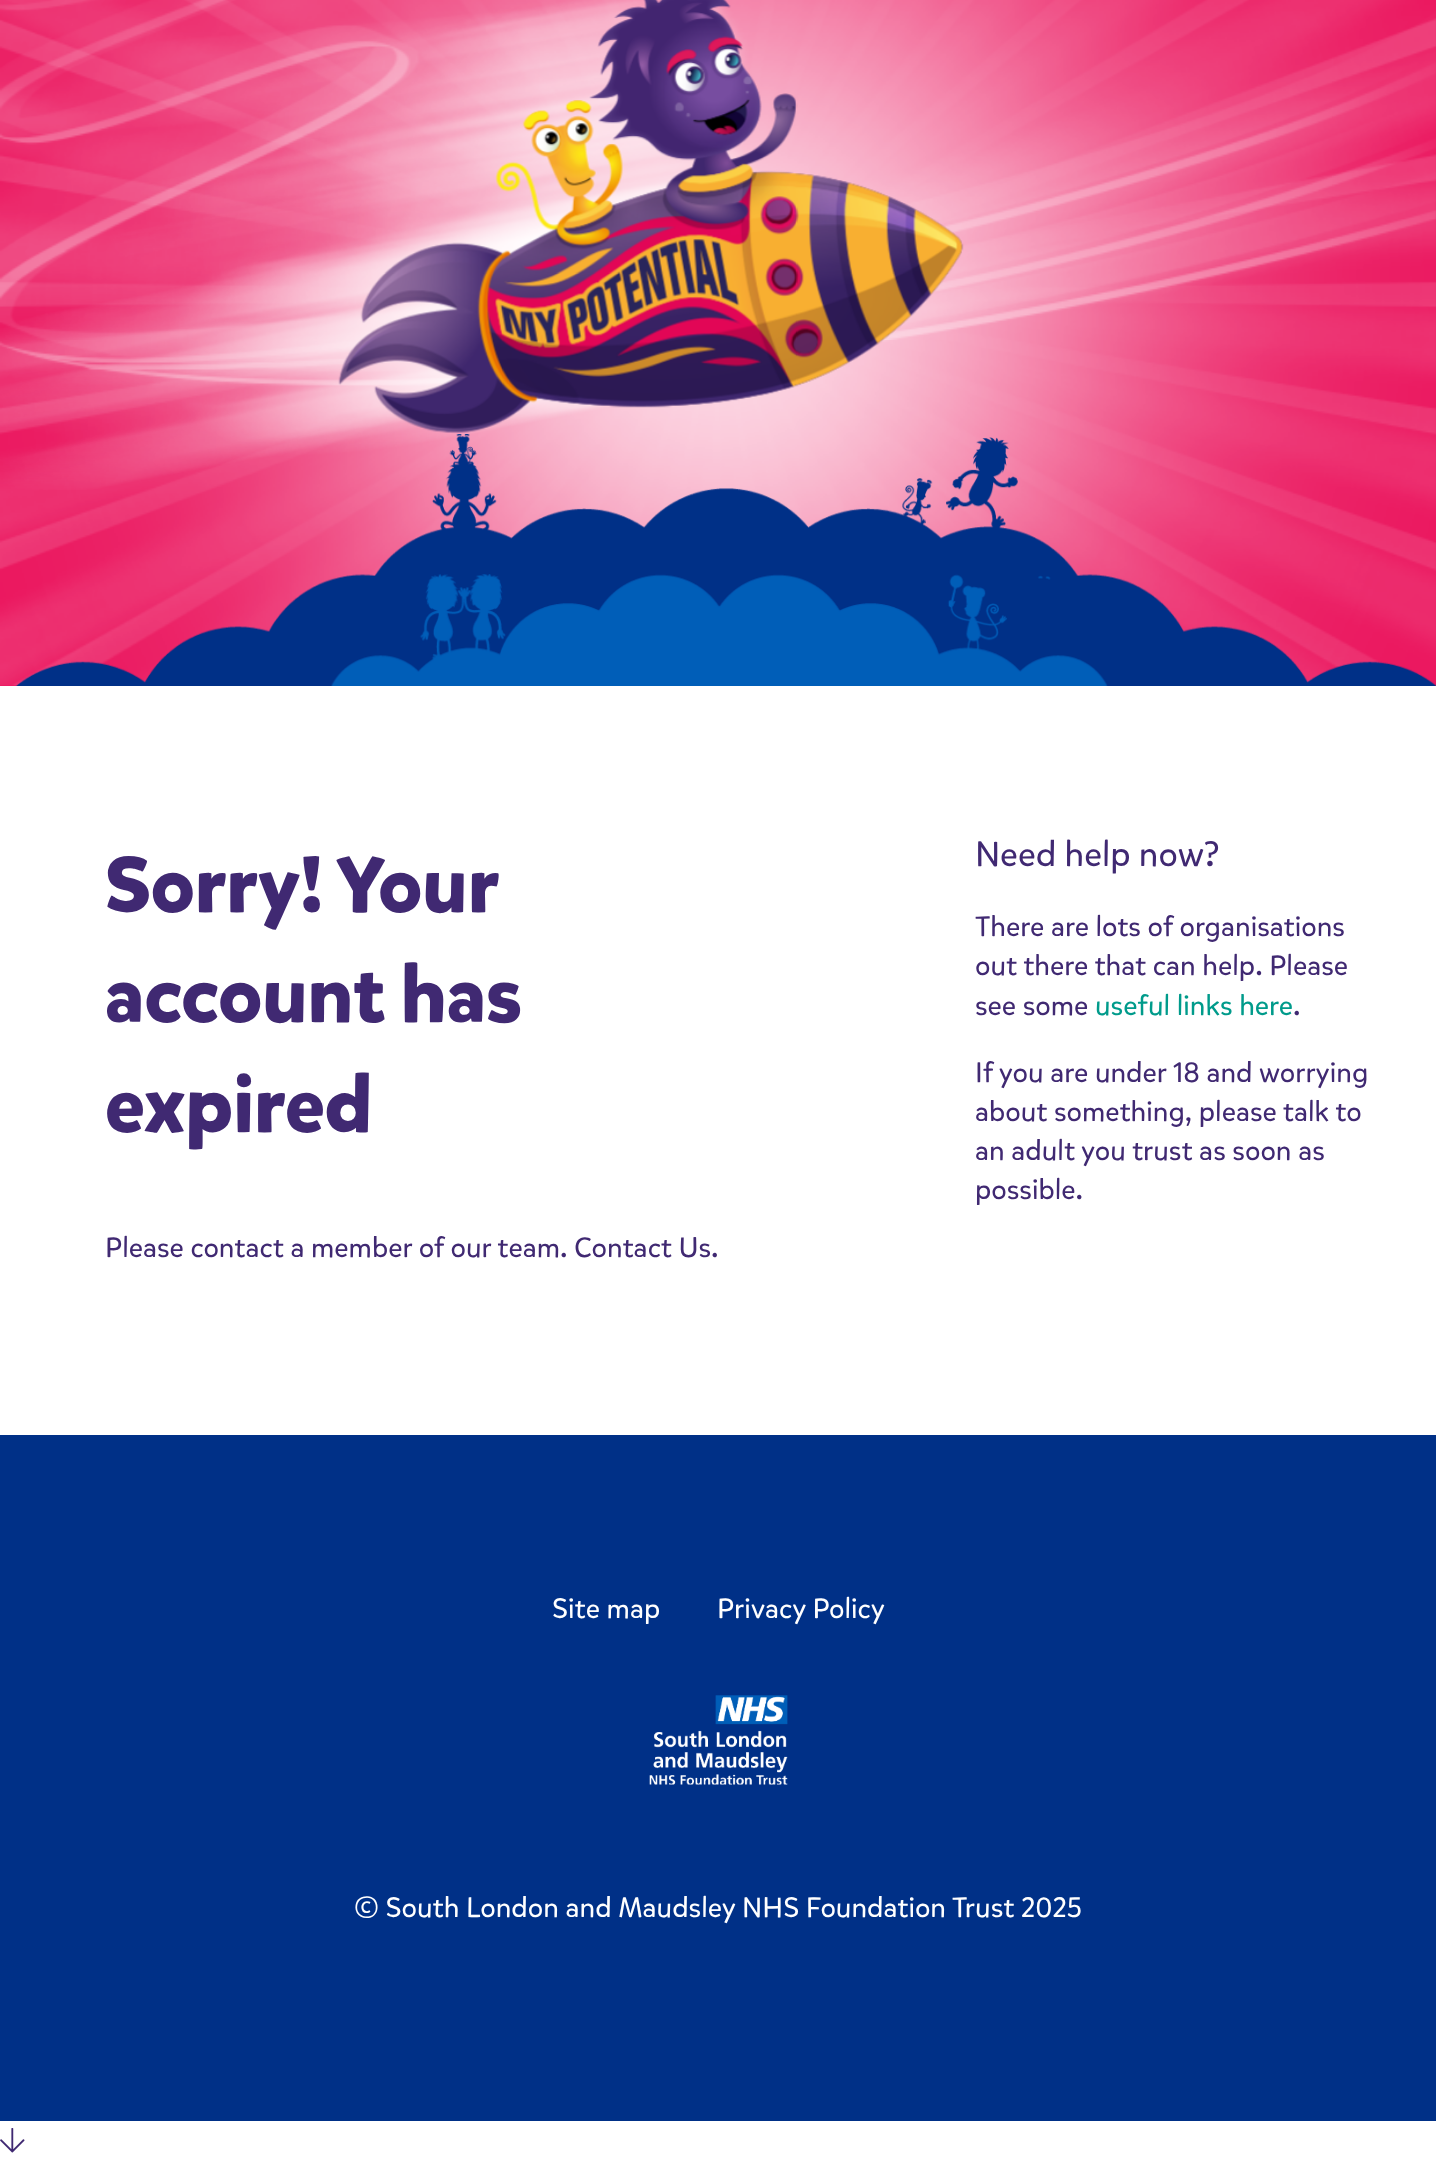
async function draw(canvas) {
	canvas.width = 1436;
	canvas.height = 2163;
	const c = canvas.getContext('2d');
	c.miterLimit = 4;
	c.fontKerning = 'normal';
	async function loadImage(src) {
		const img = new Image();
		img.src = src;
		await img.decode();
		return img;
	}

	c.fillStyle = '#fff';
	c.fillRect(0, 0, 1436, 2163);
	c.fillStyle = '#eb175f';
	c.fillRect(0, 0, 1436, 686);
	c.drawImage(await loadImage('img1.png'), 0, 0, 1436, 686);
	c.drawImage(await loadImage('img3.png'), 15, 434, 1421, 252);
	c.drawImage(await loadImage('img2.png'), 0, 0, 964, 490);
	c.drawImage(await loadImage('img4.png'), 331, 574, 777, 112);
	c.wordSpacing = '-1px';
	c.font = 'bold 78.75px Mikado';
	c.fillStyle = '#402972';
	c.fillText('Sorry! Your', 105, 912);
	c.wordSpacing = '0px';
	c.fillText('account has', 105, 1022);
	c.fillText('expired', 105, 1132);
	c.font = '28px Mikado';
	c.fillText('Please contact a member of our team. Contact Us.', 105, 1257);
	c.font = '35px Mikado';
	c.fillText('Need help now?', 975, 866);
	c.font = '28px Mikado';
	for (const [text, x, y] of [
		['There are lots of organisations', 975, 936],
		['out there that can help. Please', 975, 975],
		['see some', 975, 1015],
	]) {
		c.fillText(text, x, y);
	}
	c.fillStyle = '#009b8b';
	c.fillText('useful links here', 1095, 1015);
	c.fillStyle = '#402972';
	for (const [text, x, y] of [
		['.', 1293, 1015],
		['If you are under 18 and worrying', 975, 1082],
		['about something, please talk to', 975, 1121],
		['an adult you trust as soon as', 975, 1160],
		['possible.', 975, 1199],
	]) {
		c.fillText(text, x, y);
	}
	c.fillStyle = '#003087';
	c.fillRect(0, 1435, 1436, 686);
	c.fillStyle = '#fff';
	c.fillText('Site map', 552, 1618);
	c.fillText('Privacy Policy', 717, 1618);
	c.drawImage(await loadImage('img5.png'), 649, 1695, 139, 90);
	c.fillText('© South London and Maudsley NHS Foundation Trust 2025', 354, 1917);
	c.drawImage(await loadImage('img6.png'), 0, 2128, 25, 25);
}

draw(document.querySelector('canvas'));
